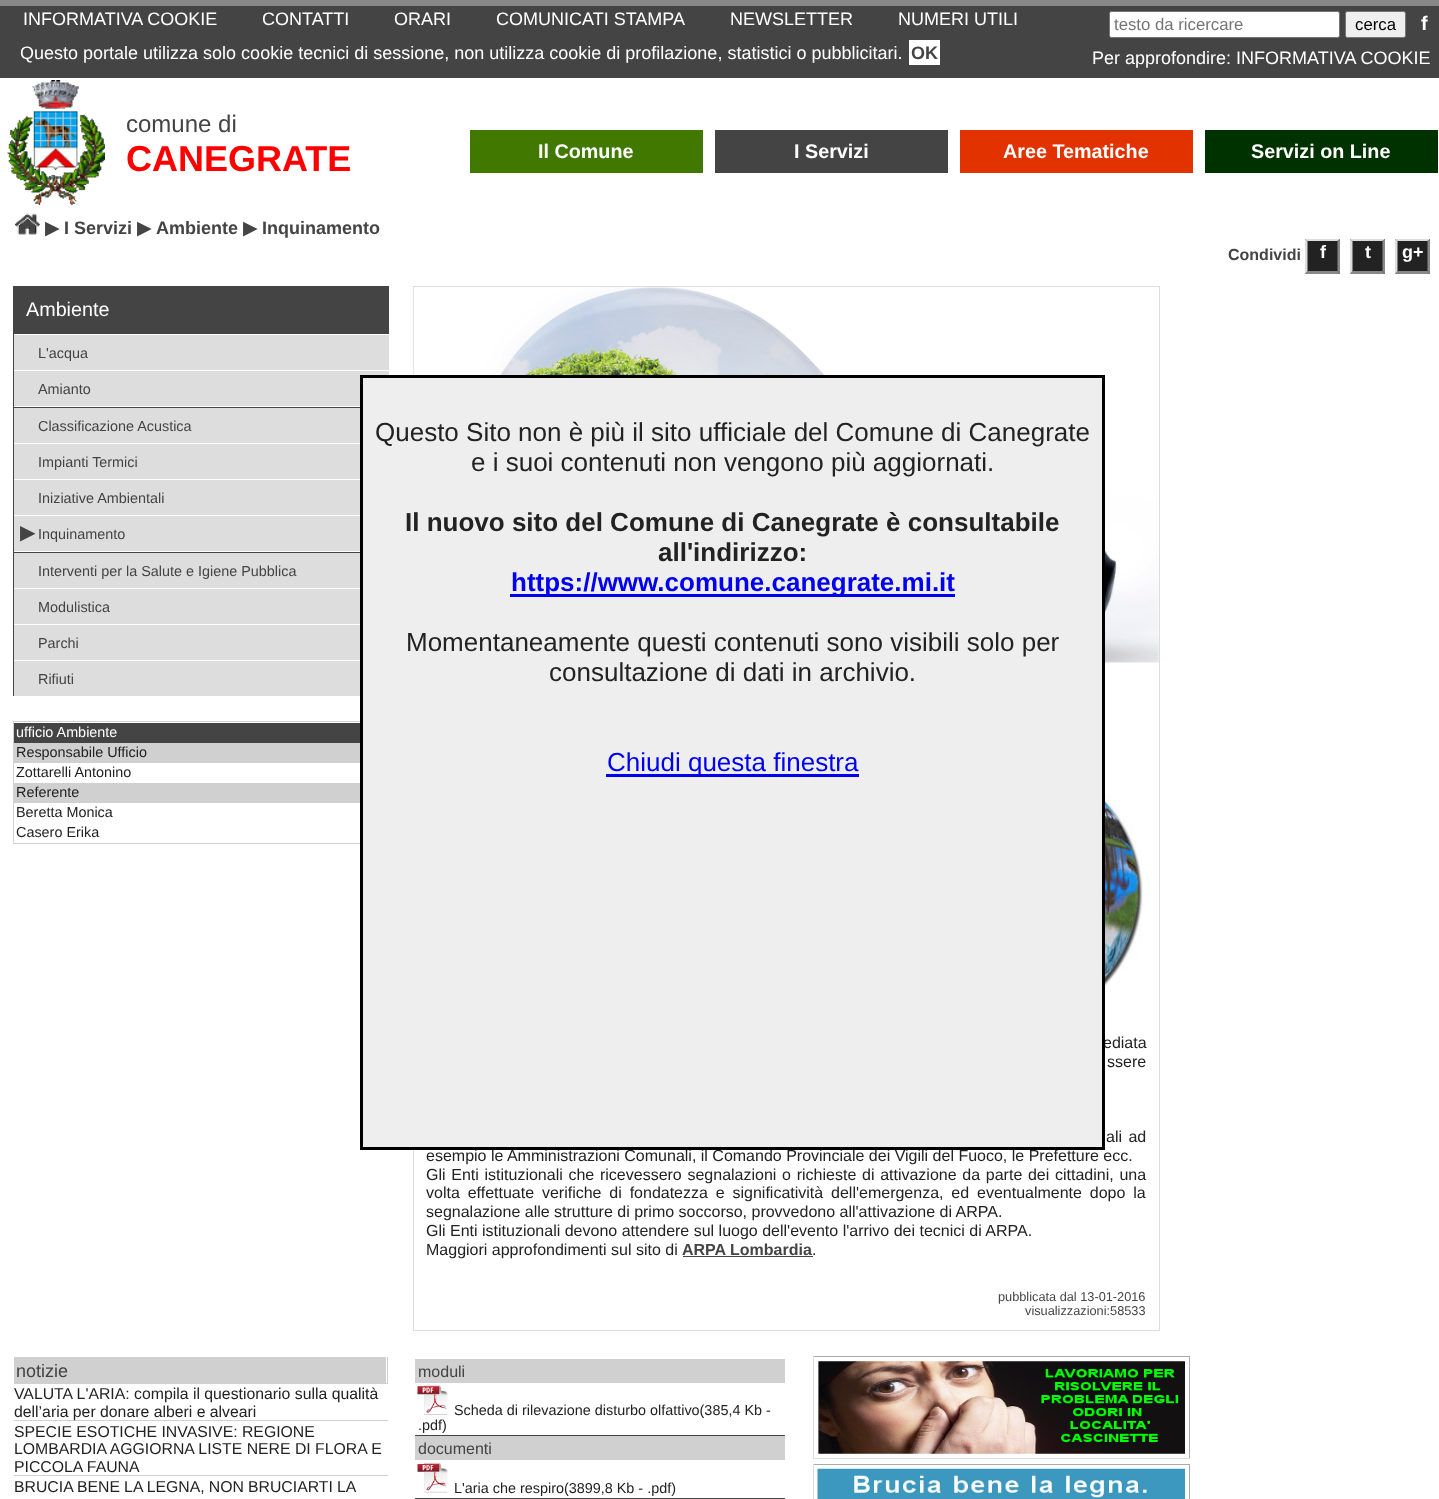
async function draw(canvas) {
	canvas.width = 1439;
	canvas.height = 1499;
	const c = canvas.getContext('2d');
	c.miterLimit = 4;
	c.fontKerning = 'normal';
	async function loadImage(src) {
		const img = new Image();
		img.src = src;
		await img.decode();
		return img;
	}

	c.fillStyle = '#fff';
	c.fillRect(0, 0, 1439, 1499);
	c.fillStyle = '#444';
	c.fillRect(0, 6, 1439, 72);
	c.fillStyle = '#888';
	c.fillRect(0, 0, 1439, 6);
	c.font = '18px Liberation Sans';
	c.fillStyle = '#fff';
	for (const [text, x, y] of [
		['INFORMATIVA COOKIE', 23, 25],
		['CONTATTI', 262, 25],
		['ORARI', 394, 25],
		['COMUNICATI STAMPA', 496, 25],
		['NEWSLETTER', 730, 25],
		['NUMERI UTILI', 898, 25],
	]) {
		c.fillText(text, x, y);
	}
	c.beginPath();
	c.roundRect(1109.5, 11.5, 230, 26, 2);
	c.fill();
	c.strokeStyle = '#767676';
	c.stroke();
	c.font = '16.75px Liberation Sans';
	c.fillStyle = '#757575';
	c.fillText('testo da ricercare', 1114, 30);
	c.fillStyle = '#efefef';
	c.beginPath();
	c.roundRect(1345.5, 11.5, 60, 26, 2);
	c.fill();
	c.stroke();
	c.fillStyle = '#000';
	c.fillText('cerca', 1355, 30);
	c.font = 'bold 19.75px Liberation Sans';
	c.fillStyle = '#fff';
	c.fillText('f', 1421, 30);
	c.font = '18px Liberation Sans';
	c.fillText('Questo portale utilizza solo cookie tecnici di sessione, non utilizza cookie di profilazione, statistici o pubblicitari.', 20, 59);
	c.fillRect(909, 40, 31, 25);
	c.font = 'bold 18px Liberation Sans';
	c.fillStyle = '#444';
	c.fillText('OK', 911, 59);
	c.font = '18px Liberation Sans';
	c.fillStyle = '#fff';
	c.fillText('Per approfondire: INFORMATIVA COOKIE', 1092, 64);
	c.drawImage(await loadImage('img1.png'), 7, 80, 98, 125);
	c.font = '24px Liberation Sans';
	c.fillStyle = '#444';
	c.fillText('comune di', 126, 132);
	c.font = 'bold 36px Liberation Sans';
	c.fillStyle = '#f00';
	c.fillText('CANEGRATE', 126, 171);
	c.fillStyle = '#407800';
	c.fillRect(470, 130, 233, 43);
	c.font = 'bold 19.75px Liberation Sans';
	c.fillStyle = '#fff';
	c.fillText('Il Comune', 538, 158);
	c.fillStyle = '#444';
	c.fillRect(715, 130, 233, 43);
	c.fillStyle = '#fff';
	c.fillText('I Servizi', 794, 158);
	c.fillStyle = '#e13200';
	c.fillRect(960, 130, 233, 43);
	c.fillStyle = '#fff';
	c.fillText('Aree Tematiche', 1003, 158);
	c.fillStyle = '#003200';
	c.fillRect(1205, 130, 233, 43);
	c.fillStyle = '#fff';
	c.fillText('Servizi on Line', 1251, 158);
	c.drawImage(await loadImage('img2.png'), 15, 213, 25, 22);
	c.font = 'bold 18px DejaVu Sans';
	c.fillStyle = '#444';
	c.fillText('▶', 45, 234);
	c.font = 'bold 18px Liberation Sans';
	c.fillText('I Servizi', 64, 234);
	c.font = 'bold 18px DejaVu Sans';
	c.fillText('▶', 137, 234);
	c.font = 'bold 18px Liberation Sans';
	c.fillText('Ambiente', 156, 234);
	c.font = 'bold 18px DejaVu Sans';
	c.fillText('▶', 243, 234);
	c.font = 'bold 18px Liberation Sans';
	c.fillText('Inquinamento', 262, 234);
	c.font = 'bold 16px Liberation Sans';
	c.fillText('Condividi', 1228, 260);
	c.fillStyle = '#222';
	c.fillRect(1305, 239, 35, 35);
	c.fillStyle = '#ddd';
	c.beginPath();
	c.moveTo(1305, 239);
	c.lineTo(1340, 239);
	c.lineTo(1337.5, 241);
	c.lineTo(1307.5, 241);
	c.closePath();
	c.fill();
	c.fillStyle = '#888';
	c.beginPath();
	c.moveTo(1340, 239);
	c.lineTo(1340, 274);
	c.lineTo(1337.5, 271);
	c.lineTo(1337.5, 241);
	c.closePath();
	c.fill();
	c.beginPath();
	c.moveTo(1340, 274);
	c.lineTo(1305, 274);
	c.lineTo(1307.5, 271);
	c.lineTo(1337.5, 271);
	c.closePath();
	c.fill();
	c.fillStyle = '#ddd';
	c.beginPath();
	c.moveTo(1305, 274);
	c.lineTo(1305, 239);
	c.lineTo(1307.5, 241);
	c.lineTo(1307.5, 271);
	c.closePath();
	c.fill();
	c.font = 'bold 18px Liberation Sans';
	c.fillStyle = '#fff';
	c.fillText('f', 1320, 258);
	c.fillStyle = '#222';
	c.fillRect(1350, 239, 35, 35);
	c.fillStyle = '#ddd';
	c.beginPath();
	c.moveTo(1350, 239);
	c.lineTo(1385, 239);
	c.lineTo(1382.5, 241);
	c.lineTo(1352.5, 241);
	c.closePath();
	c.fill();
	c.fillStyle = '#888';
	c.beginPath();
	c.moveTo(1385, 239);
	c.lineTo(1385, 274);
	c.lineTo(1382.5, 271);
	c.lineTo(1382.5, 241);
	c.closePath();
	c.fill();
	c.beginPath();
	c.moveTo(1385, 274);
	c.lineTo(1350, 274);
	c.lineTo(1352.5, 271);
	c.lineTo(1382.5, 271);
	c.closePath();
	c.fill();
	c.fillStyle = '#ddd';
	c.beginPath();
	c.moveTo(1350, 274);
	c.lineTo(1350, 239);
	c.lineTo(1352.5, 241);
	c.lineTo(1352.5, 271);
	c.closePath();
	c.fill();
	c.fillStyle = '#fff';
	c.fillText('t', 1365, 258);
	c.fillStyle = '#222';
	c.fillRect(1395, 239, 35, 35);
	c.fillStyle = '#ddd';
	c.beginPath();
	c.moveTo(1395, 239);
	c.lineTo(1430, 239);
	c.lineTo(1427.5, 241);
	c.lineTo(1397.5, 241);
	c.closePath();
	c.fill();
	c.fillStyle = '#888';
	c.beginPath();
	c.moveTo(1430, 239);
	c.lineTo(1430, 274);
	c.lineTo(1427.5, 271);
	c.lineTo(1427.5, 241);
	c.closePath();
	c.fill();
	c.beginPath();
	c.moveTo(1430, 274);
	c.lineTo(1395, 274);
	c.lineTo(1397.5, 271);
	c.lineTo(1427.5, 271);
	c.closePath();
	c.fill();
	c.fillStyle = '#ddd';
	c.beginPath();
	c.moveTo(1395, 274);
	c.lineTo(1395, 239);
	c.lineTo(1397.5, 241);
	c.lineTo(1397.5, 271);
	c.closePath();
	c.fill();
	c.fillStyle = '#fff';
	c.fillText('g+', 1402, 258);
	c.fillStyle = '#444';
	c.fillRect(14, 286, 375, 267);
	c.fillRect(13, 286, 1, 410);
	c.font = '19.75px Liberation Sans';
	c.fillStyle = '#fff';
	c.fillText('Ambiente', 26, 316);
	c.fillStyle = '#ddd';
	c.fillRect(14, 335, 375, 35);
	c.fillStyle = '#fff';
	c.fillRect(14, 334, 375, 1);
	c.font = '14.4px Liberation Sans';
	c.fillStyle = '#444';
	c.fillText('L\'acqua', 38, 358);
	c.fillStyle = '#ddd';
	c.fillRect(14, 371, 375, 35);
	c.fillStyle = '#fff';
	c.fillRect(14, 370, 375, 1);
	c.fillStyle = '#444';
	c.fillText('Amianto', 38, 394);
	c.fillStyle = '#ddd';
	c.fillRect(14, 408, 346, 35);
	c.fillStyle = '#fff';
	c.fillRect(14, 406, 346, 1);
	c.fillStyle = '#444';
	c.fillText('Classificazione Acustica', 38, 431);
	c.fillStyle = '#ddd';
	c.fillRect(14, 444, 346, 35);
	c.fillStyle = '#fff';
	c.fillRect(14, 443, 346, 1);
	c.fillStyle = '#444';
	c.fillText('Impianti Termici', 38, 467);
	c.fillStyle = '#ddd';
	c.fillRect(14, 480, 346, 35);
	c.fillStyle = '#fff';
	c.fillRect(14, 479, 346, 1);
	c.fillStyle = '#444';
	c.fillText('Iniziative Ambientali', 38, 503);
	c.fillStyle = '#ddd';
	c.fillRect(14, 516, 346, 35);
	c.fillStyle = '#fff';
	c.fillRect(14, 515, 346, 1);
	c.font = 'bold 19px DejaVu Sans';
	c.fillStyle = '#444';
	c.fillText('▶', 20, 539);
	c.font = '14.4px Liberation Sans';
	c.fillText('Inquinamento', 38, 539);
	c.fillStyle = '#ddd';
	c.fillRect(14, 553, 346, 35);
	c.fillStyle = '#fff';
	c.fillRect(14, 551, 346, 1);
	c.fillStyle = '#444';
	c.fillText('Interventi per la Salute e Igiene Pubblica', 38, 576);
	c.fillStyle = '#ddd';
	c.fillRect(14, 589, 346, 35);
	c.fillStyle = '#444';
	c.fillText('Modulistica', 38, 612);
	c.fillStyle = '#ddd';
	c.fillRect(14, 625, 346, 35);
	c.fillStyle = '#444';
	c.fillText('Parchi', 38, 648);
	c.fillStyle = '#ddd';
	c.fillRect(14, 661, 346, 35);
	c.fillStyle = '#444';
	c.fillText('Rifiuti', 38, 684);
	c.strokeStyle = '#d0d0d0';
	c.strokeRect(13.5, 721.5, 376, 122);
	c.fillRect(14, 723, 346, 20);
	c.fillStyle = '#fff';
	c.fillText('ufficio Ambiente', 16, 737);
	c.fillStyle = '#d0d0d0';
	c.fillRect(14, 743, 346, 20);
	c.fillStyle = '#222';
	c.fillText('Responsabile Ufficio', 16, 757);
	c.fillText('Zottarelli Antonino', 16, 777);
	c.fillStyle = '#d0d0d0';
	c.fillRect(14, 783, 346, 20);
	c.fillStyle = '#222';
	for (const [text, x, y] of [
		['Referente', 16, 797],
		['Beretta Monica', 16, 817],
		['Casero Erika', 16, 837],
	]) {
		c.fillText(text, x, y);
	}
	c.strokeStyle = '#ddd';
	c.strokeRect(413.5, 286.5, 746, 1044);
	c.drawImage(await loadImage('img3.png'), 413, 287, 746, 376);
	c.drawImage(await loadImage('img4.png'), 1105, 749, 38, 284);
	c.wordSpacing = '6px';
	c.font = '16px Liberation Sans';
	c.fillText('ediata', 1103, 1048);
	c.wordSpacing = '1px';
	c.fillText('ssere', 1107, 1067);
	c.wordSpacing = '2px';
	c.fillText('ali ad', 1106, 1142);
	c.wordSpacing = '0px';
	c.fillText('esempio le Amministrazioni Comunali, il Comando Provinciale dei Vigili del Fuoco, le Prefetture ecc.', 426, 1161);
	c.wordSpacing = '1.25px';
	c.fillText('Gli Enti istituzionali che ricevessero segnalazioni o richieste di attivazione da parte dei cittadini, una', 426, 1180);
	c.wordSpacing = '3.4px';
	c.fillText('volta effettuate verifiche di fondatezza e significatività dell\'emergenza, ed eventualmente dopo la', 426, 1198);
	c.wordSpacing = '0px';
	for (const [text, x, y] of [
		['segnalazione alle strutture di primo soccorso, provvedono all\'attivazione di ARPA.', 426, 1217],
		['Gli Enti istituzionali devono attendere sul luogo dell\'evento l\'arrivo dei tecnici di ARPA.', 426, 1236],
		['Maggiori approfondimenti sul sito di', 426, 1255],
	]) {
		c.fillText(text, x, y);
	}
	c.font = 'bold 16px Liberation Sans';
	c.fillStyle = '#444';
	c.fillText('ARPA Lombardia', 682, 1255);
	c.fillRect(683, 1256, 130, 1);
	c.font = '16px Liberation Sans';
	c.fillStyle = '#222';
	c.fillText('.', 812, 1255);
	c.font = '12.75px Liberation Sans';
	c.fillStyle = '#444';
	c.fillText('pubblicata dal 13-01-2016', 998, 1301);
	c.fillText('visualizzazioni:58533', 1025, 1315);
	for (const [x, y, w, h, color] of [
		[14, 1357, 374, 26, '#d0d0d0'],
		[386, 1356, 1, 28, '#fff'],
		[13, 1383, 375, 1, '#d0d0d0'],
		[13, 1383, 1, 1, '#fff'],
	]) {
		c.fillStyle = color;
		c.fillRect(x, y, w, h);
	}
	c.font = '18px Liberation Sans';
	c.fillStyle = '#444';
	c.fillText('notizie', 16, 1377);
	c.fillStyle = '#d0d0d0';
	c.fillRect(13, 1420, 375, 1);
	c.fillStyle = '#fff';
	c.fillRect(13, 1420, 1, 1);
	c.font = '15.8px Liberation Sans';
	c.fillStyle = '#222';
	c.fillText('VALUTA L\'ARIA: compila il questionario sulla qualità', 14, 1399);
	c.fillText('dell’aria per donare alberi e alveari', 14, 1417);
	c.fillStyle = '#d0d0d0';
	c.fillRect(13, 1475, 375, 1);
	c.fillStyle = '#fff';
	c.fillRect(13, 1475, 1, 1);
	c.fillStyle = '#222';
	for (const [text, x, y] of [
		['SPECIE ESOTICHE INVASIVE: REGIONE', 14, 1437],
		['LOMBARDIA AGGIORNA LISTE NERE DI FLORA E', 14, 1454],
		['PICCOLA FAUNA', 14, 1472],
	]) {
		c.fillText(text, x, y);
	}
	c.wordSpacing = '-0.25px';
	c.fillText('BRUCIA BENE LA LEGNA, NON BRUCIARTI LA', 14, 1492);
	c.fillStyle = '#d0d0d0';
	c.fillRect(415, 1359, 370, 24);
	c.wordSpacing = '0px';
	c.font = '16px Liberation Sans';
	c.fillStyle = '#444';
	c.fillText('moduli', 418, 1377);
	c.fillRect(415, 1435, 370, 1);
	c.drawImage(await loadImage('img5.png'), 417, 1385, 31, 30);
	c.font = '14.4px Liberation Sans';
	c.fillStyle = '#222';
	c.fillText('Scheda di rilevazione disturbo olfattivo(385,4 Kb -', 454, 1415);
	c.fillText('.pdf)', 418, 1430);
	c.fillStyle = '#d0d0d0';
	c.fillRect(415, 1436, 370, 24);
	c.font = '16px Liberation Sans';
	c.fillStyle = '#444';
	c.fillText('documenti', 418, 1454);
	c.fillRect(415, 1498, 370, 1);
	c.drawImage(await loadImage('img6.png'), 417, 1462, 31, 31);
	c.font = '14.4px Liberation Sans';
	c.fillStyle = '#222';
	c.fillText('L\'aria che respiro(3899,8 Kb - .pdf)', 454, 1493);
	for (const [x, y, w, h, color] of [
		[813, 1356, 377, 1, '#aaa'],
		[1189, 1356, 1, 103, '#aaa'],
		[813, 1458, 377, 1, '#ddd'],
		[813, 1356, 1, 103, '#ddd'],
	]) {
		c.fillStyle = color;
		c.fillRect(x, y, w, h);
	}
	c.drawImage(await loadImage('img7.png'), 818, 1361, 367, 93);
	for (const [x, y, w, h, color] of [
		[813, 1464, 377, 1, '#aaa'],
		[1189, 1464, 1, 35, '#aaa'],
		[813, 1464, 1, 35, '#ddd'],
	]) {
		c.fillStyle = color;
		c.fillRect(x, y, w, h);
	}
	c.drawImage(await loadImage('img8.png'), 817, 1468, 368, 31);
	c.fillStyle = '#eee';
	c.beginPath();
	c.rect(361.5, 376.5, 742, 772);
	c.fill();
	c.strokeStyle = '#000';
	c.lineWidth = 3;
	c.stroke();
	c.font = '26px Liberation Sans';
	c.fillStyle = '#222';
	c.fillText('Questo Sito non è più il sito ufficiale del Comune di Canegrate', 375, 441);
	c.fillText('e i suoi contenuti non vengono più aggiornati.', 471, 471);
	c.font = 'bold 26px Liberation Sans';
	c.fillText('Il nuovo sito del Comune di Canegrate è consultabile', 405, 531);
	c.fillText('all\'indirizzo:', 658, 561);
	c.fillStyle = '#00e';
	c.fillRect(510, 594, 445, 3);
	c.fillText('https://www.comune.canegrate.mi.it', 511, 591);
	c.font = '26px Liberation Sans';
	c.fillStyle = '#222';
	c.fillText('Momentaneamente questi contenuti sono visibili solo per', 406, 651);
	c.fillText('consultazione di dati in archivio.', 549, 681);
	c.fillStyle = '#00e';
	c.fillRect(606, 774, 253, 3);
	c.fillText('Chiudi questa finestra', 607, 771);
}

draw(document.querySelector('canvas'));
